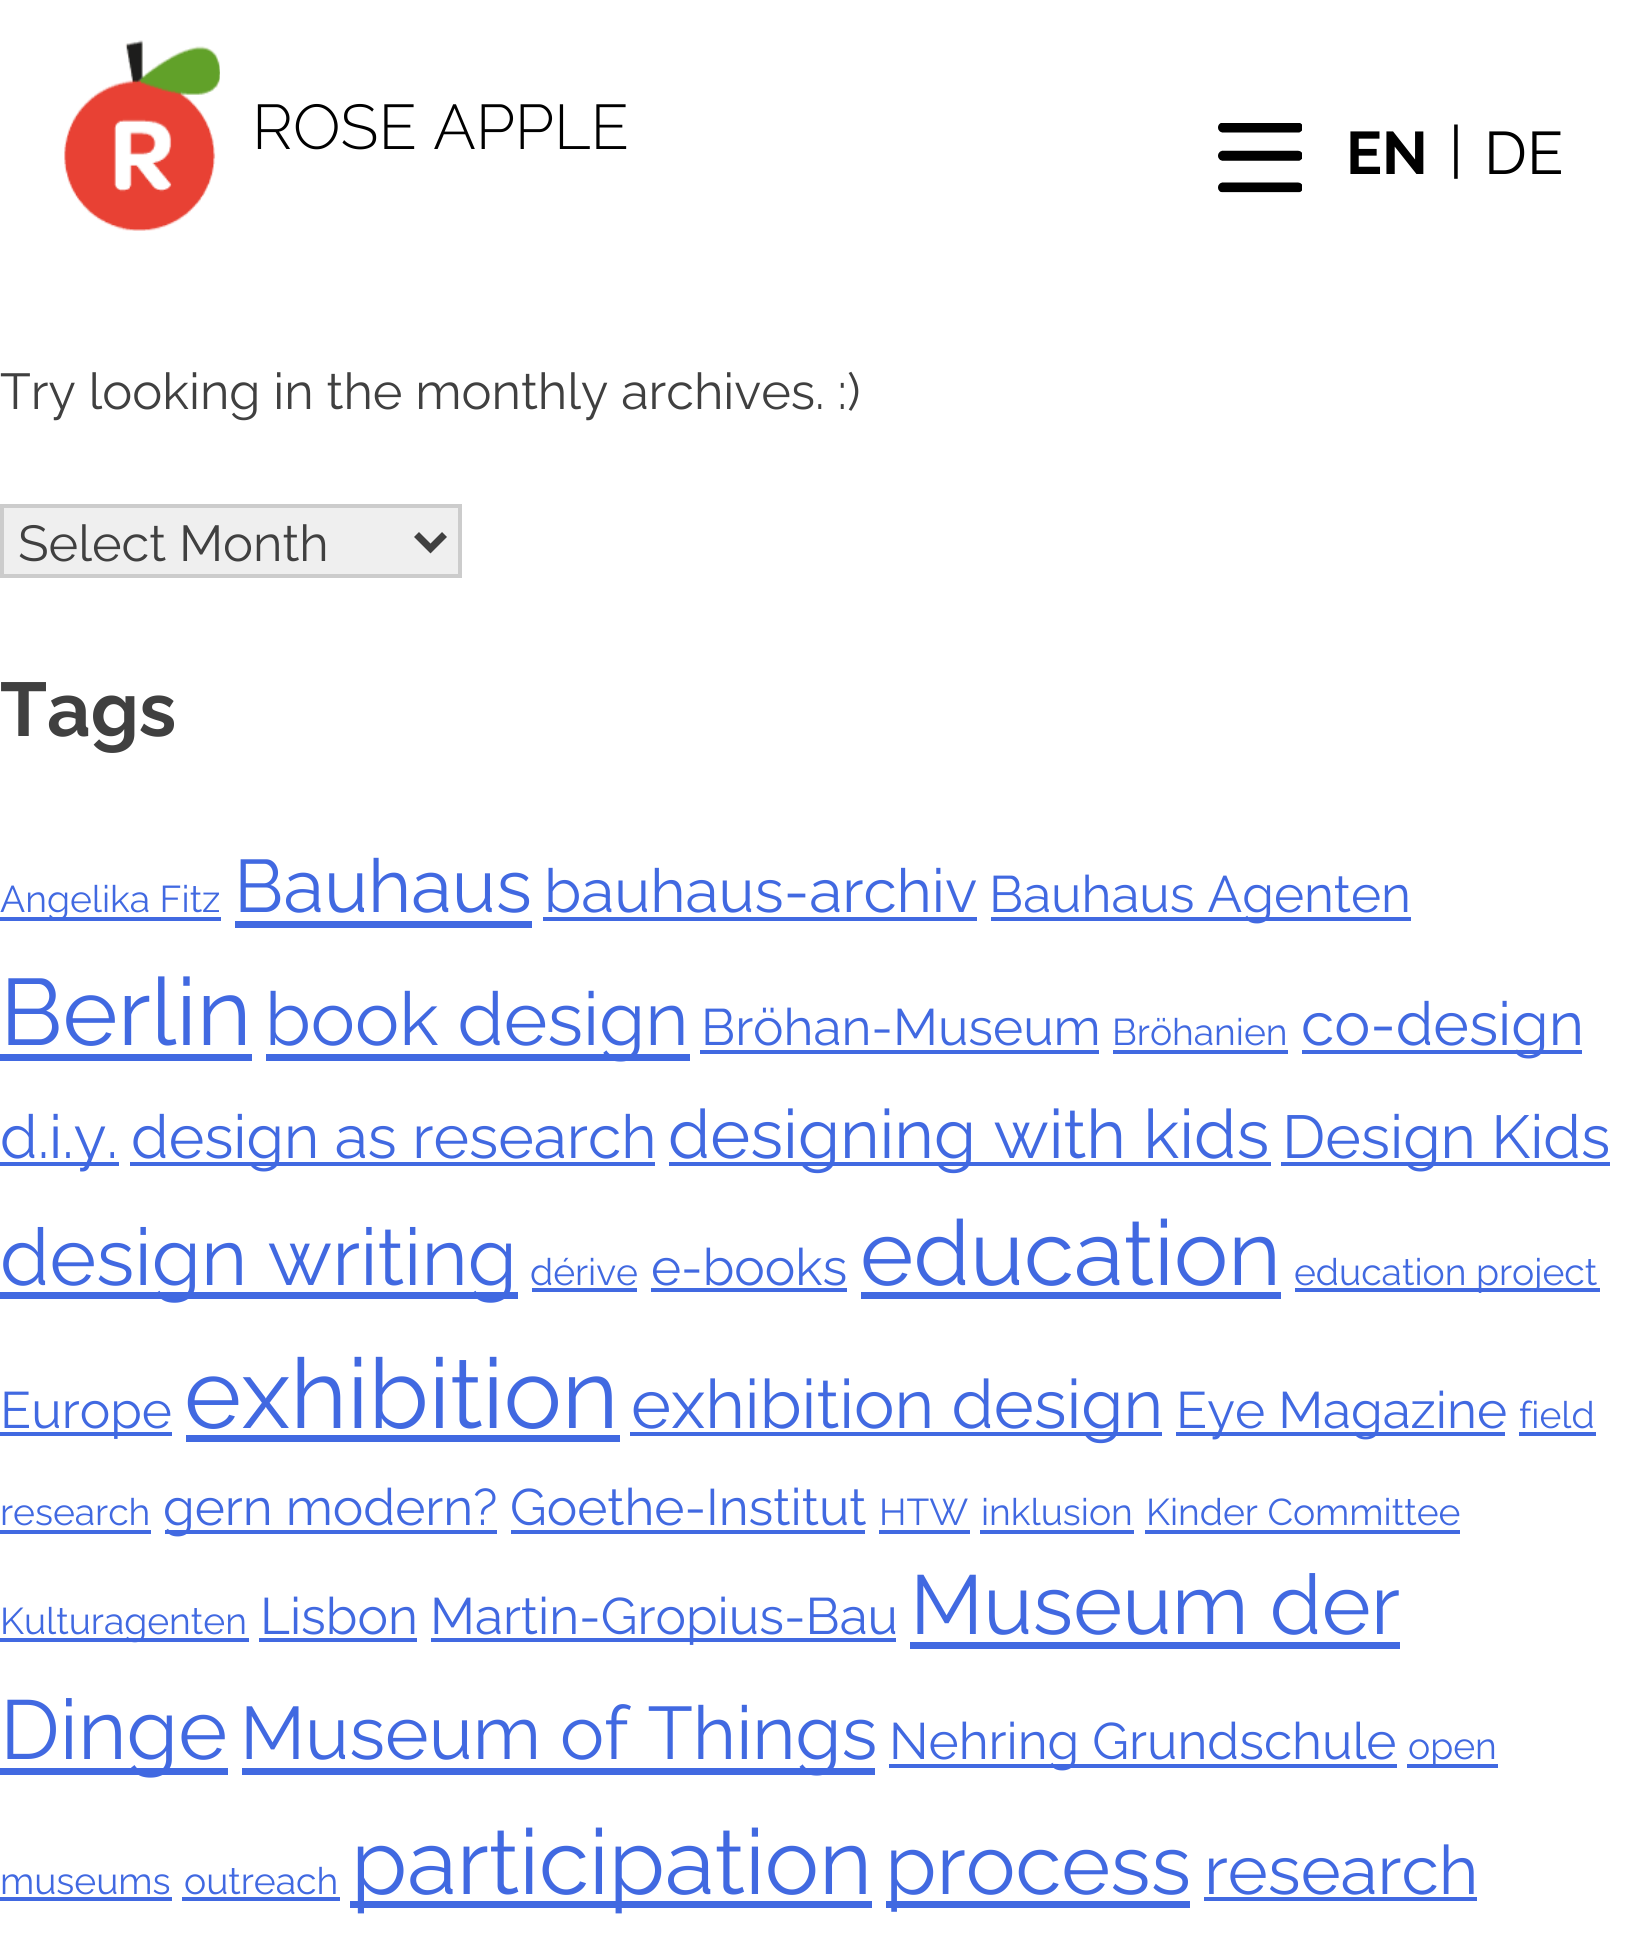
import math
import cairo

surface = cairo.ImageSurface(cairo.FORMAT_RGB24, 1630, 1941)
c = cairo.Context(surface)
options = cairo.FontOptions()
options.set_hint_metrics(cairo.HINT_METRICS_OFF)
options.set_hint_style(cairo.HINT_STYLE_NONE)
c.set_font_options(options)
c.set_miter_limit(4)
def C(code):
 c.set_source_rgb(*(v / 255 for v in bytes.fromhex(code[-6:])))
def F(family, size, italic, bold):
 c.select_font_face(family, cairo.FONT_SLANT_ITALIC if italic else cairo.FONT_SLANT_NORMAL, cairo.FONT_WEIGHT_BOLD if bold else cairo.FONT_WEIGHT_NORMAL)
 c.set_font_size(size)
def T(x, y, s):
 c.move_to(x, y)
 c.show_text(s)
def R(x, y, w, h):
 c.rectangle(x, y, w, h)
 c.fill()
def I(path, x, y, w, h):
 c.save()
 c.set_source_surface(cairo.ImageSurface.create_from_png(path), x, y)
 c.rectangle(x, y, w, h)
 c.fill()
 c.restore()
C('ffffff')
c.paint()
I('1.png',64,40,156,191)
F('Raleway Light',63,0,0)
C('000000')
T(252,149,'ROSE APPLE')
I('2.png',1218,123,84,70)
F('Raleway',60,0,1)
T(1346,174,'EN')
F('Raleway',60,0,0)
T(1449,171,'|')
T(1484,174,'DE')
F('Raleway',50.4,0,0)
C('404040')
T(0,409,'Try looking in the monthly archives. :)')
C('efefef')
c.rectangle(2,506,458,70)
c.fill_preserve()
C('cccccc')
c.set_line_width(4)
c.stroke()
c.new_path()
c.move_to(416.5,534.5)
c.line_to(430.5,548.5)
c.line_to(444.5,534.5)
C('404040')
c.set_line_width(7)
c.stroke()
T(18,561,'Select Month')
F('Raleway',76,0,1)
T(0,736,'Tags')
C('4169e1')
R(0,917,221,4)
F('Raleway',37.25,0,0)
T(0,912,'Angelika Fitz')
F('Raleway',74.25,0,0)
T(234,912,'Bauhaus')
R(235,921,297,7)
F('Raleway',60.5,0,0)
T(544,912,'bauhaus-archiv')
R(543,917,434,4)
R(991,917,420,4)
F('Raleway',51.25,0,0)
T(989,912,'Bauhaus Agenten')
F('Raleway',94,0,0)
T(0,1045,'Berlin')
R(0,1054,252,7)
R(266,1054,424,7)
F('Raleway',74.25,0,0)
T(265,1045,'book design')
F('Raleway',51.25,0,0)
T(701,1045,'Bröhan-Museum')
R(700,1050,399,4)
F('Raleway',37.25,0,0)
T(1112,1045,'Bröhanien')
R(1113,1050,175,4)
R(1302,1050,280,4)
F('Raleway',60.5,0,0)
T(1301,1045,'co-design')
R(0,1162,119,4)
T(0,1158,'d.i.y.')
R(130,1162,525,4)
T(131,1158,'design as research')
R(669,1162,602,4)
F('Raleway',68,0,0)
T(668,1158,'designing with kids')
R(1281,1162,329,4)
F('Raleway',60.5,0,0)
T(1282,1158,'Design Kids')
R(0,1292,518,7)
F('Raleway',79.5,0,0)
T(0,1285,'design writing')
F('Raleway',37.25,0,0)
T(530,1285,'dérive')
R(532,1288,105,4)
F('Raleway',51.25,0,0)
T(651,1285,'e-books')
R(651,1288,196,4)
F('Raleway',91,0,0)
T(860,1285,'education')
R(861,1292,420,7)
R(1295,1288,305,4)
F('Raleway',37.25,0,0)
T(1294,1285,'education project')
R(0,1432,172,4)
F('Raleway',51.25,0,0)
T(0,1428,'Europe')
F('Raleway',97.5,0,0)
T(184,1428,'exhibition')
R(186,1435,434,7)
R(630,1432,532,4)
F('Raleway',68,0,0)
T(631,1428,'exhibition design')
R(1176,1432,329,4)
F('Raleway',51.25,0,0)
T(1176,1428,'Eye Magazine')
F('Raleway',37.25,0,0)
T(1519,1428,'field')
R(1519,1432,77,4)
T(0,1525,'research')
R(0,1530,151,4)
R(165,1530,332,4)
F('Raleway',51.25,0,0)
T(163,1525,'gern modern?')
T(510,1525,'Goethe-Institut')
R(511,1530,354,4)
F('Raleway',37.25,0,0)
T(879,1525,'HTW')
R(879,1530,91,4)
T(981,1525,'inklusion')
R(980,1530,154,4)
T(1146,1525,'Kinder Committee')
R(1145,1530,315,4)
R(0,1638,249,4)
T(0,1634,'Kulturagenten')
F('Raleway',51.25,0,0)
T(260,1634,'Lisbon')
R(259,1638,158,4)
R(431,1638,465,4)
T(430,1634,'Martin-Gropius-Bau')
F('Raleway',83.5,0,0)
T(910,1634,'Museum der')
R(910,1642,490,7)
R(0,1768,228,7)
T(0,1759,'Dinge')
R(242,1768,633,7)
F('Raleway',74.25,0,0)
T(240,1759,'Museum of Things')
R(889,1764,508,4)
F('Raleway',51.25,0,0)
T(889,1759,'Nehring Grundschule')
R(1407,1764,91,4)
F('Raleway',37.25,0,0)
T(1408,1759,'open')
T(0,1894,'museums')
R(0,1897,172,4)
T(184,1894,'outreach')
R(182,1897,158,4)
R(350,1901,522,7)
F('Raleway',91,0,0)
T(351,1894,'participation')
R(886,1901,304,7)
F('Raleway',83.5,0,0)
T(885,1894,'process')
F('Raleway',68,0,0)
T(1204,1894,'research')
R(1204,1897,273,4)
surface.write_to_png('o.png')
